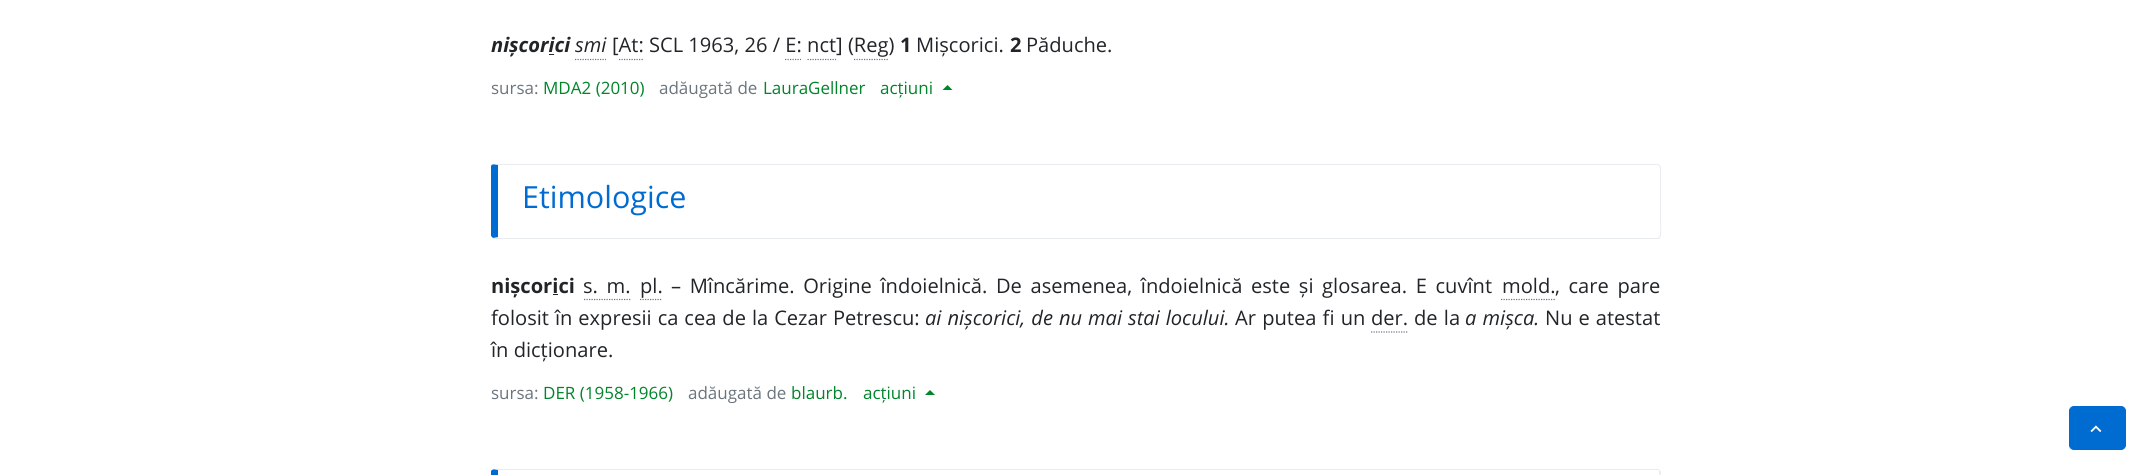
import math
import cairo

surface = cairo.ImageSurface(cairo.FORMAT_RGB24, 2151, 475)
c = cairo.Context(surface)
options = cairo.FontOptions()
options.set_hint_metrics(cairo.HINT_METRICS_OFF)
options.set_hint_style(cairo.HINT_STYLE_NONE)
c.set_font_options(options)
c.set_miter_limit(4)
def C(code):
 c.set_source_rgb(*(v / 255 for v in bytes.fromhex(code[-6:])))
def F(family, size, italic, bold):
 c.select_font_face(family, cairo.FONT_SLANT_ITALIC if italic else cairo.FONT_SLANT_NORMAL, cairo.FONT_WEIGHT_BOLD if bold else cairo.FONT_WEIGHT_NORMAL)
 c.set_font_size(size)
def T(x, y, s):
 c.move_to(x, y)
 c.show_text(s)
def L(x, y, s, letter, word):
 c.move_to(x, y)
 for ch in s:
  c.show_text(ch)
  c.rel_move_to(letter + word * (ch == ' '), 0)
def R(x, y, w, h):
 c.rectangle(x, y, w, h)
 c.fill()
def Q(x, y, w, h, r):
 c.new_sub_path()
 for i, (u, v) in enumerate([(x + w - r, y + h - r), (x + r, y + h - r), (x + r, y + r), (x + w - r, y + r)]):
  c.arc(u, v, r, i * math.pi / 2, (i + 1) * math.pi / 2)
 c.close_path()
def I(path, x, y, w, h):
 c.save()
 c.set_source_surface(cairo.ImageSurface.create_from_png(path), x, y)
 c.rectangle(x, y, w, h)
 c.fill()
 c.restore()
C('ffffff')
c.paint()
F('Open Sans',20.1,1,1)
C('212529')
T(491,52,'nișcorici')
R(549,54,5,1)
F('Open Sans',20.1,1,0)
T(575,52,'smi')
c.new_path()
c.move_to(575,59.5)
c.line_to(606,59.5)
C('6c757d')
c.set_line_width(1.2)
c.set_dash([1.25,1.25])
c.stroke()
F('Open Sans',20.1,0,0)
C('212529')
T(612,52,'[At: SCL 1963, 26 / E: nct] (Reg)')
F('Open Sans',20.1,0,1)
T(900,52,'1')
F('Open Sans',20.1,0,0)
T(916,52,'Mișcorici.')
F('Open Sans',20.1,0,1)
T(1010,52,'2')
F('Open Sans',20.1,0,0)
T(1026,52,'Păduche.')
c.new_path()
c.move_to(619,59.5)
c.line_to(644,59.5)
C('6c757d')
c.stroke()
c.new_path()
c.move_to(785,59.5)
c.line_to(801,59.5)
c.move_to(807.5,59.5)
c.line_to(836,59.5)
c.stroke()
c.new_path()
c.move_to(854,59.5)
c.line_to(889,59.5)
c.stroke()
F('Open Sans',17,0,0)
T(491,94,'sursa:')
C('00852a')
T(543,94,'MDA2 (2010)')
C('6c757d')
T(659,94,'adăugată de')
C('00852a')
T(763,94,'LauraGellner')
T(880,94,'acțiuni')
c.new_path()
c.move_to(952.5,90)
c.line_to(942.5,90)
c.line_to(947.5,85)
c.close_path()
c.fill()
C('e9ecef')
c.new_path()
c.move_to(495,164)
c.line_to(494,164)
c.line_to(498,165)
c.line_to(1658,165)
c.line_to(1659,166)
c.line_to(1660,165)
c.line_to(1658,164)
c.close_path()
c.fill()
c.new_path()
c.move_to(1660,165)
c.line_to(1661,167)
c.line_to(1661,224)
c.curve_to(1661,224,1662,235,1660,238)
c.line_to(1659,237)
c.curve_to(1661,234,1660,224,1660,224)
c.line_to(1660,168)
c.line_to(1659,166)
c.close_path()
c.fill()
c.new_path()
c.move_to(494,239)
c.line_to(493,238)
c.line_to(498,237)
c.line_to(498,238)
c.line_to(1658,238)
c.line_to(1659,237)
c.line_to(1660,238)
c.line_to(1659,239)
c.close_path()
c.fill()
C('006cd1')
c.new_path()
c.move_to(491,166)
c.curve_to(492,163,496,165,498,165)
c.line_to(498,237)
c.line_to(493,238)
c.line_to(491,236)
c.close_path()
c.fill()
F('Open Sans',30.5,0,0)
T(522,208,'Etimologice')
F('Open Sans',20.1,0,1)
C('212529')
T(491,293,'nișcorici')
R(553,294,5,1)
F('Open Sans',20.1,0,0)
L(583,293,'s. m.',0,3.4)
c.new_path()
c.move_to(584,299.5)
c.line_to(631,299.5)
C('6c757d')
c.stroke()
C('212529')
T(640,293,'pl.')
c.new_path()
c.move_to(640,299.5)
c.line_to(662.5,299.5)
C('6c757d')
c.stroke()
C('212529')
L(671,293,'– Mîncărime. Origine îndoielnică. De asemenea, îndoielnică este și glosarea. E cuvînt',0,3.4)
T(1502,293,'mold.')
c.new_path()
c.move_to(1501,299.5)
c.line_to(1555,299.5)
C('6c757d')
c.stroke()
C('212529')
L(1555,293,', care pare',0,3.4)
L(491,325,'folosit în expresii ca cea de la Cezar Petrescu:',0,.75)
F('Open Sans',20.1,1,0)
L(925,325,'ai nișcorici, de nu mai stai locului.',0,.75)
F('Open Sans',20.1,0,0)
L(1235,325,'Ar putea fi un',0,1)
T(1371,325,'der.')
c.new_path()
c.move_to(1371,332)
c.line_to(1407.5,332)
C('6c757d')
c.stroke()
C('212529')
L(1414,325,'de la',0,1)
F('Open Sans',20.1,1,0)
L(1465,325,'a mișca.',0,1)
F('Open Sans',20.1,0,0)
L(1545,325,'Nu e atestat',0,.75)
T(491,357,'în dicționare.')
F('Open Sans',17,0,0)
C('6c757d')
T(491,399,'sursa:')
C('00852a')
T(543,399,'DER (1958-1966)')
C('6c757d')
T(688,399,'adăugată de')
C('00852a')
T(791,399,'blaurb.')
T(863,399,'acțiuni')
c.new_path()
c.move_to(935,395)
c.line_to(925,395)
c.line_to(930,390)
c.close_path()
c.fill()
C('e9ecef')
c.new_path()
c.move_to(495,469)
c.line_to(493,469)
c.line_to(498,470)
c.line_to(1658,470)
c.line_to(1659,471)
c.line_to(1660,470)
c.line_to(1658,469)
c.close_path()
c.fill()
c.new_path()
c.move_to(1660,470)
c.line_to(1661,472)
c.line_to(1661,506)
c.line_to(1661,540)
c.line_to(1660,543)
c.line_to(1659,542)
c.line_to(1660,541)
c.line_to(1660,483)
c.line_to(1659,471)
c.close_path()
c.fill()
C('006cd1')
c.new_path()
c.move_to(491,471)
c.curve_to(493,468,496,470,498,470)
c.line_to(498,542)
c.line_to(500,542)
c.line_to(493,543)
c.line_to(491,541)
c.close_path()
c.fill()
Q(2069.5,406.5,56,43,4.5)
c.fill_preserve()
c.set_line_width(1)
c.set_dash([])
c.stroke()
I('1.png',2090,425,12,8)
surface.write_to_png('o.png')
